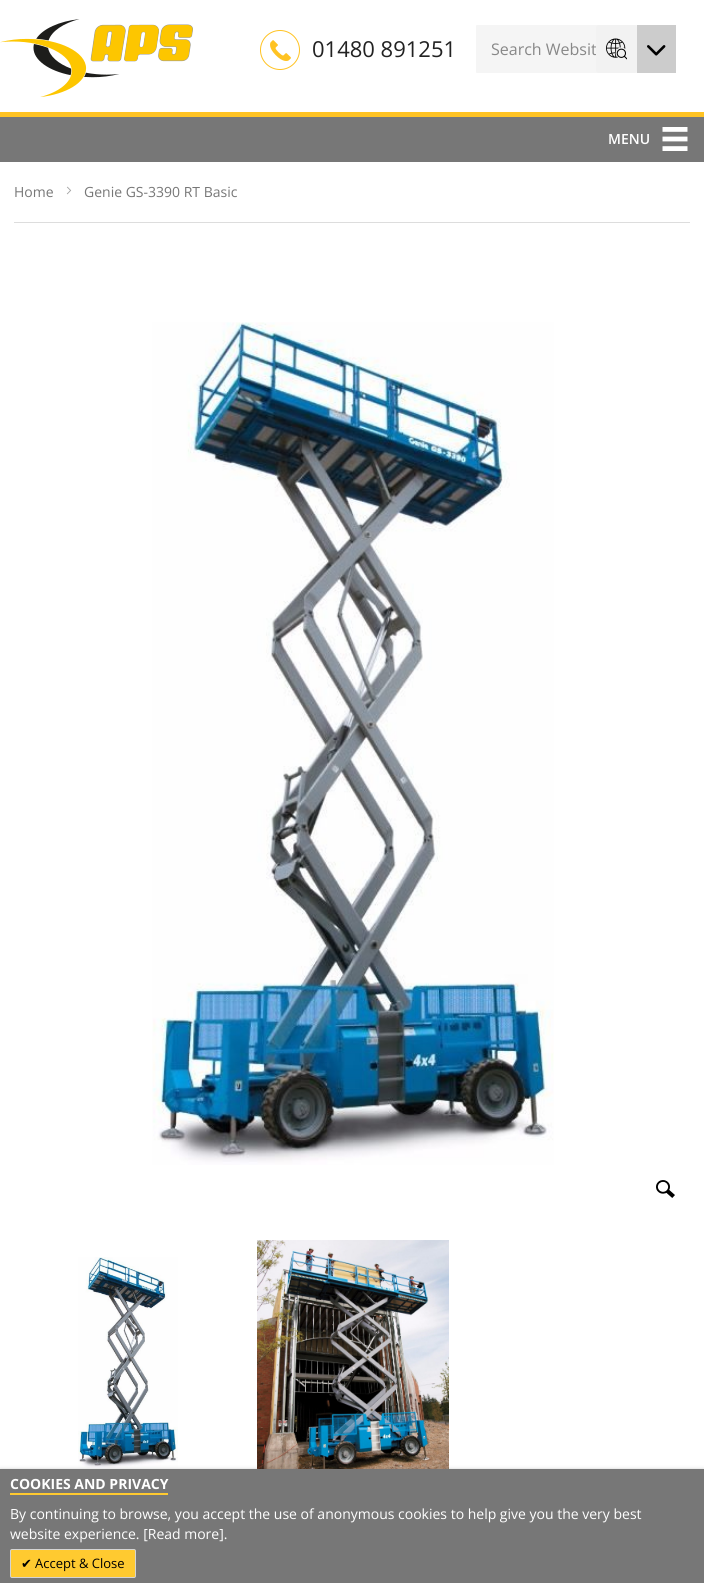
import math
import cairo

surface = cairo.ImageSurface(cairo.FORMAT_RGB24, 704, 1583)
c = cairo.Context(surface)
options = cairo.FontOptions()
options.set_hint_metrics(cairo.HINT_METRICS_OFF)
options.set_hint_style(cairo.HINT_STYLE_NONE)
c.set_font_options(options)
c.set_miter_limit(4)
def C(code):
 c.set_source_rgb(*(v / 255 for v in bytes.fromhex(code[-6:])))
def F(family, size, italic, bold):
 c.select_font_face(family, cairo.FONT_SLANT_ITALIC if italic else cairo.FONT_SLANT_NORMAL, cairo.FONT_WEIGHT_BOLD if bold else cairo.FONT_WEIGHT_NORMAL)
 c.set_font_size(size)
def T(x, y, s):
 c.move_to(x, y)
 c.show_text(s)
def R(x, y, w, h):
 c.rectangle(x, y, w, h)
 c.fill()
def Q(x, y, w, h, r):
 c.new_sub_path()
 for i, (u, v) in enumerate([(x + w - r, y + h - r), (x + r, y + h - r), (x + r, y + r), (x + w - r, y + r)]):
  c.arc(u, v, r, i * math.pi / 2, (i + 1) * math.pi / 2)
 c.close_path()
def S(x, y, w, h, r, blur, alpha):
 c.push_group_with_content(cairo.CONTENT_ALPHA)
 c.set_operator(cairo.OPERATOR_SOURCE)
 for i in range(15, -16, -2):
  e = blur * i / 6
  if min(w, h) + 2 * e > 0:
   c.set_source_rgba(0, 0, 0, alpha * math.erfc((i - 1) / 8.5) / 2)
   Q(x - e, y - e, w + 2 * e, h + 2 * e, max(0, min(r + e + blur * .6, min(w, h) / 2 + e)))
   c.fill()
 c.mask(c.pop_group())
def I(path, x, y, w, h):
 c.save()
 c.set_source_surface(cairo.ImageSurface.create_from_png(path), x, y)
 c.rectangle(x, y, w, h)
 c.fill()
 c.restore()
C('ffffff')
c.paint()
I('1.png',0,19,193,78)
c.arc(280,50,19.5,0,2 * math.pi)
C('ffc323')
c.set_line_width(1)
c.stroke()
I('2.png',270,40,21,21)
F('Open Sans',22,0,0)
C('222222')
T(312,57,'01480 891251')
C('f5f5f5')
Q(476,25,200,48,1)
c.fill()
F('Open Sans',16,0,0)
C('888888')
T(491,55,'Search Websit')
C('f2f2f2')
Q(596,25,41,48,3)
c.fill()
I('3.png',606,38,21,22)
C('cccccc')
R(637,25,39,48)
I('4.png',647,45,19,11)
C('777777')
R(0,117,704,45)
C('ffc323')
R(0,112,704,5)
F('Open Sans SemiBold',14,0,0)
C('ffffff')
T(608,144,'MENU')
I('5.png',662,127,26,24)
C('dddddd')
R(14,222,676,1)
F('Open Sans',14,0,0)
C('777777')
T(14,197,'Home')
I('6.png',66,186,6,9)
T(84,197,'Genie GS-3390 RT Basic')
I('7.png',152,322,402,843)
I('8.png',656,1180,19,18)
I('9.png',78,1257,100,211)
I('10.png',257,1240,192,229)
C('000000')
S(0,1471,704,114,0,2.5,.47)
C('777777')
R(0,1469,704,114)
F('Open Sans',14,0,1)
C('ffffff')
T(10,1489,'COOKIES AND PRIVACY')
C('ffca30')
R(10,1493,158,2)
F('Open Sans',14,0,0)
C('ffffff')
T(10,1519,'By continuing to browse, you accept the use of anonymous cookies to help give you the very best')
T(10,1539,'website experience. [Read more].')
C('ffca30')
Q(10.5,1549.5,125,28,1.5)
c.fill_preserve()
C('d4d4d4')
c.stroke()
F('DejaVu Sans',13,0,0)
C('000000')
T(21,1568,'✔')
F('Open Sans',13,0,0)
T(35,1568,'Accept & Close')
surface.write_to_png('o.png')
